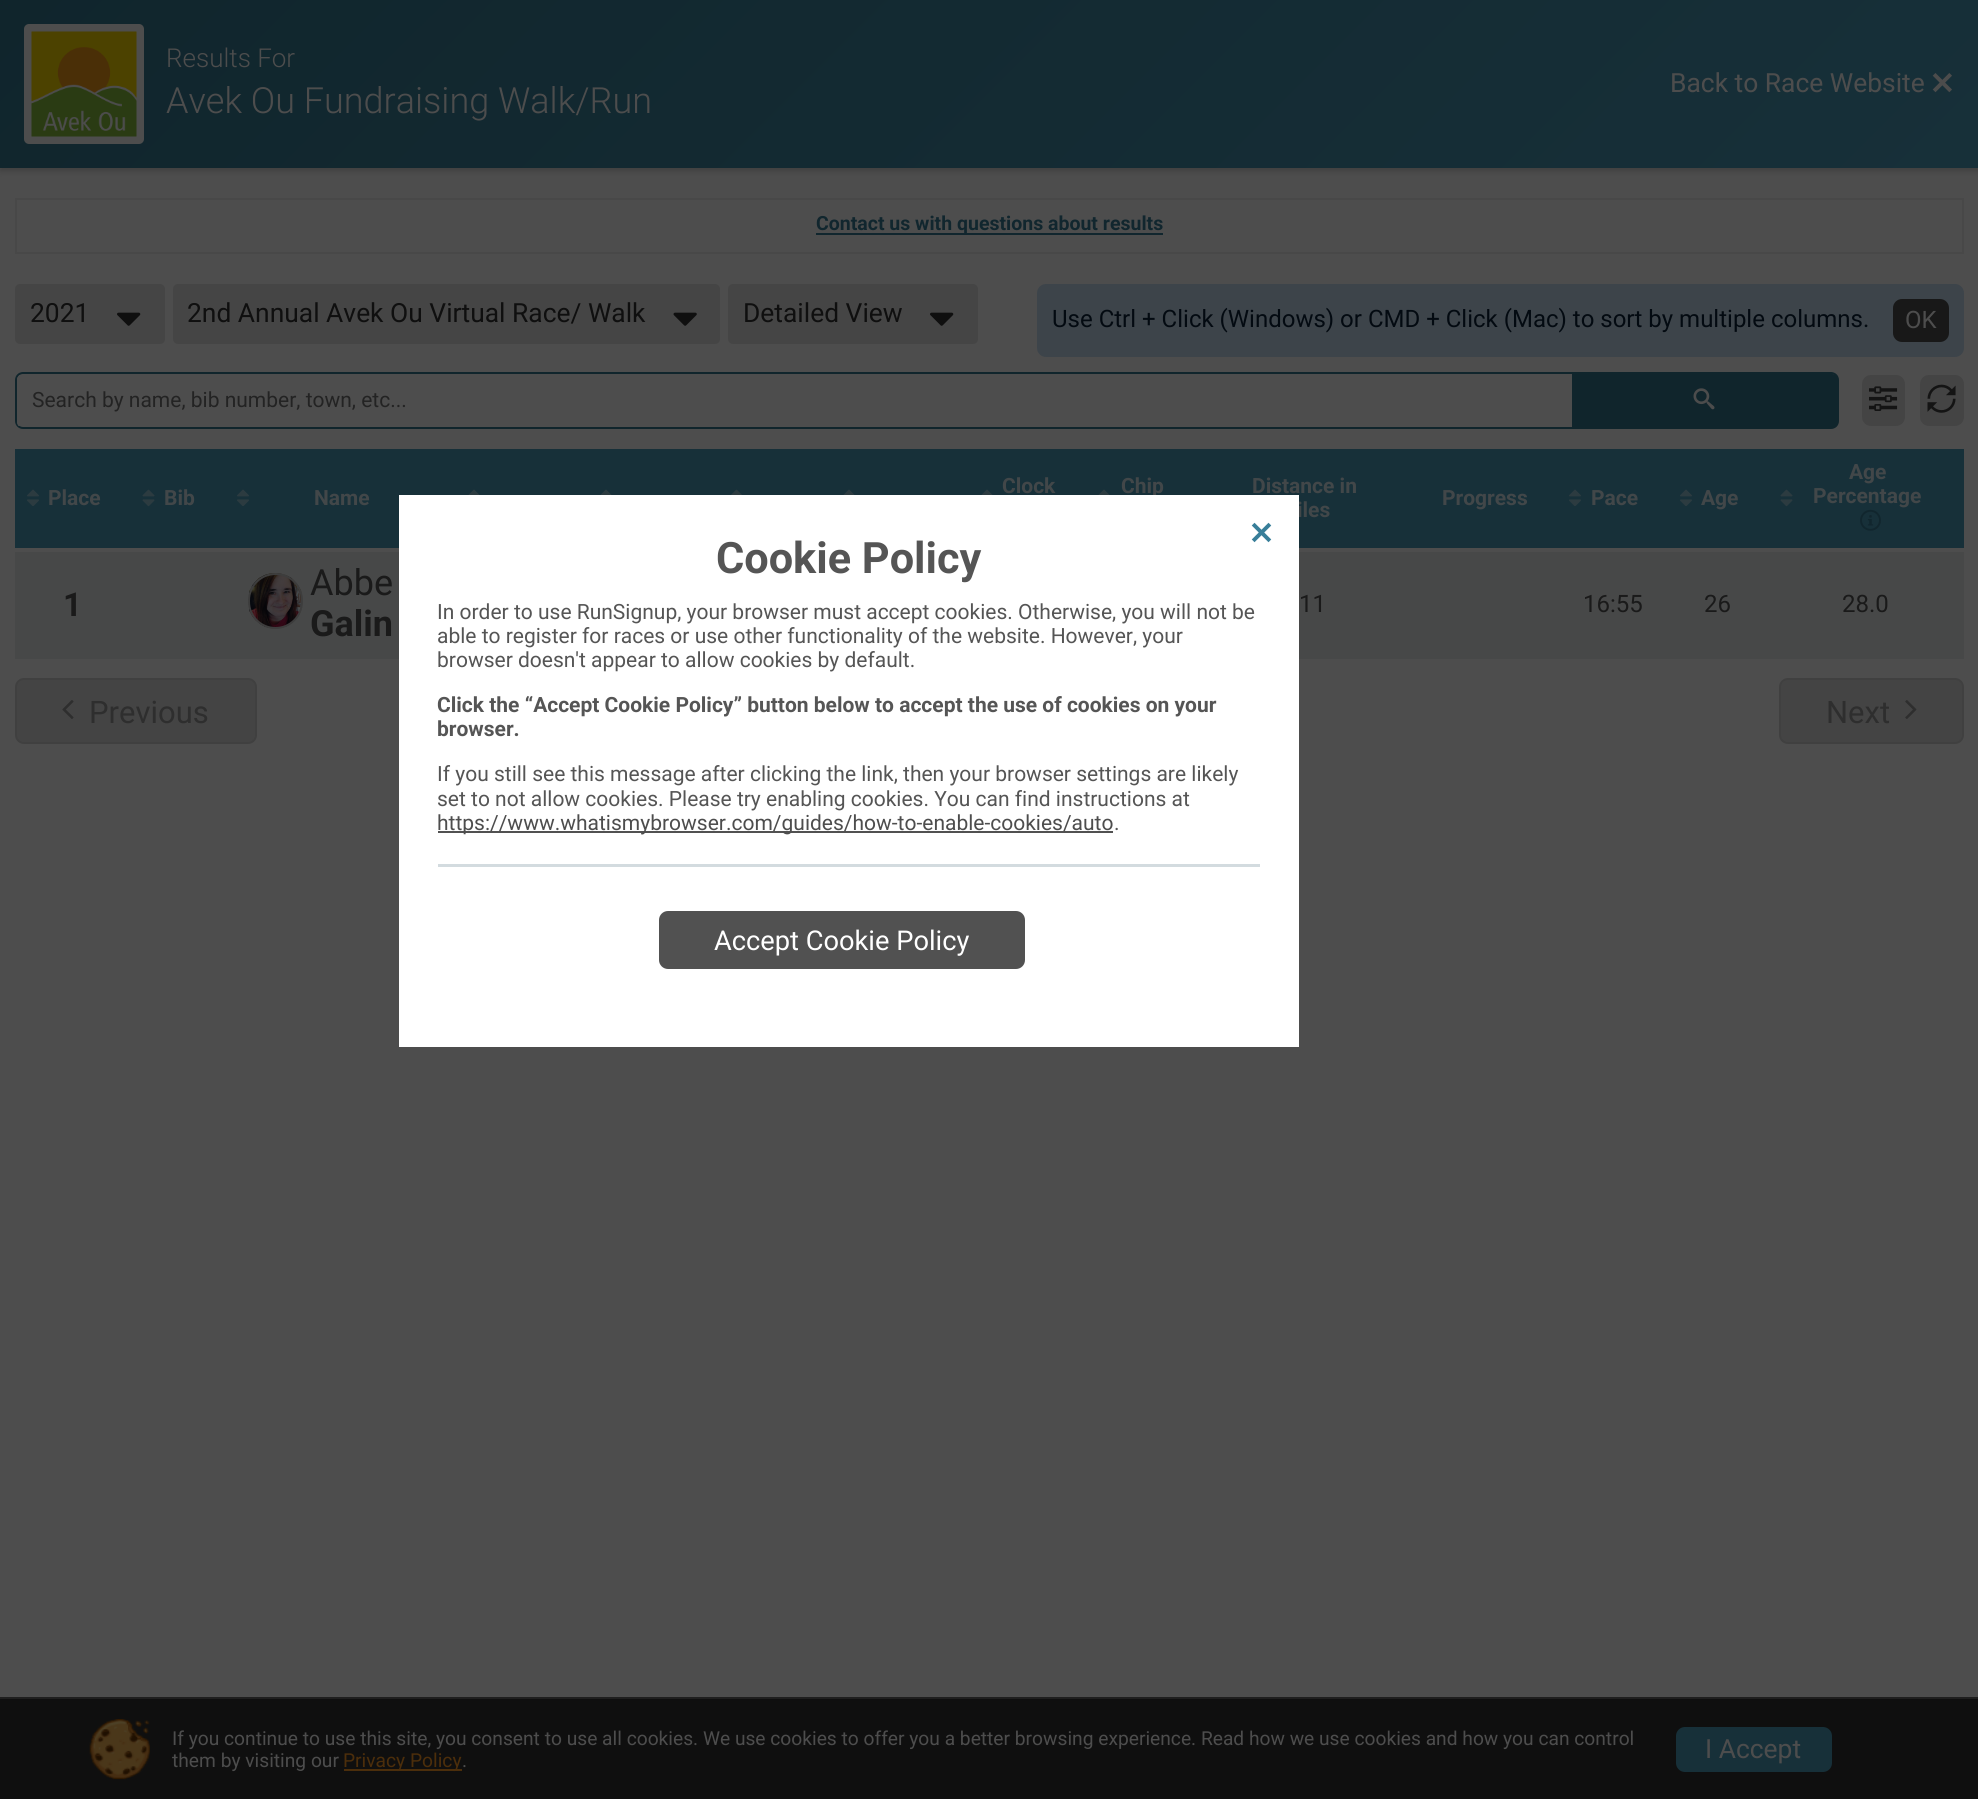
import math
import cairo

surface = cairo.ImageSurface(cairo.FORMAT_RGB24, 1978, 1799)
c = cairo.Context(surface)
options = cairo.FontOptions()
options.set_hint_metrics(cairo.HINT_METRICS_OFF)
options.set_hint_style(cairo.HINT_STYLE_NONE)
c.set_font_options(options)
c.set_miter_limit(4)
def C(code):
 c.set_source_rgb(*(v / 255 for v in bytes.fromhex(code[-6:])))
def F(family, size, italic, bold):
 c.select_font_face(family, cairo.FONT_SLANT_ITALIC if italic else cairo.FONT_SLANT_NORMAL, cairo.FONT_WEIGHT_BOLD if bold else cairo.FONT_WEIGHT_NORMAL)
 c.set_font_size(size)
def T(x, y, s):
 c.move_to(x, y)
 c.show_text(s)
def R(x, y, w, h):
 c.rectangle(x, y, w, h)
 c.fill()
def Q(x, y, w, h, r):
 c.new_sub_path()
 for i, (u, v) in enumerate([(x + w - r, y + h - r), (x + r, y + h - r), (x + r, y + r), (x + w - r, y + r)]):
  c.arc(u, v, r, i * math.pi / 2, (i + 1) * math.pi / 2)
 c.close_path()
def S(x, y, w, h, r, blur, alpha):
 c.push_group_with_content(cairo.CONTENT_ALPHA)
 c.set_operator(cairo.OPERATOR_SOURCE)
 for i in range(15, -16, -2):
  e = blur * i / 6
  if min(w, h) + 2 * e > 0:
   c.set_source_rgba(0, 0, 0, alpha * math.erfc((i - 1) / 8.5) / 2)
   Q(x - e, y - e, w + 2 * e, h + 2 * e, max(0, min(r + e + blur * .6, min(w, h) / 2 + e)))
   c.fill()
 c.mask(c.pop_group())
def I(path, x, y, w, h):
 c.save()
 c.set_source_surface(cairo.ImageSurface.create_from_png(path), x, y)
 c.rectangle(x, y, w, h)
 c.fill()
 c.restore()
C('4d4d4d')
c.paint()
C('000000')
S(0,3,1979,168,0,3,.18)
gradient = cairo.LinearGradient(1526,621,453,-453)
gradient.add_color_stop_rgba(0,0.09,0.188,0.224,1)
gradient.add_color_stop_rgba(1,0.063,0.145,0.173,1)
c.set_source(gradient)
R(0,0,1978,168)
C('4d4d4d')
Q(24,24,120,120,5)
c.fill()
I('1.png',31,31,106,106)
F('Roboto Light',26,0,0)
T(166,67,'Results For')
F('Roboto Light',36,0,0)
T(166,113,'Avek Ou Fundraising Walk/Run')
F('Roboto',26.4,0,0)
T(1670,92,'Back to Race Website')
I('2.png',1932,73,20,20)
c.rectangle(16,199,1947,54)
C('484848')
c.stroke()
C('11262e')
R(816,233,347,2)
F('Roboto',19.5,0,1)
T(816,230,'Contact us with questions about results')
C('454545')
Q(15,284,150,60,5)
c.fill()
F('Roboto',26.4,0,0)
C('0f0f0f')
T(30,322,'2021')
I('3.png',117,312,24,14)
C('454545')
Q(173,284,547,60,5)
c.fill()
C('0f0f0f')
T(187,322,'2nd Annual Avek Ou Virtual Race/ Walk')
I('4.png',673,312,24,14)
C('454545')
Q(728,284,250,60,5)
c.fill()
C('0f0f0f')
T(743,322,'Detailed View')
I('3.png',930,312,24,14)
C('3d444a')
Q(1037,284,927,73,9)
c.fill()
F('Roboto',24,0,0)
C('030a11')
T(1052,327,'Use Ctrl + Click (Windows) or CMD + Click (Mac) to sort by multiple columns.')
C('181818')
Q(1893,299,56,43,9)
c.fill()
C('4d4d4d')
T(1905,328,'OK')
Q(16,373,1822,55,7)
C('10252c')
c.stroke()
c.save()
Q(17,374,1821,54,6)
c.clip()
C('4d4d4d')
R(17,375,1555,51)
c.restore()
F('Roboto',21,0,0)
C('232323')
T(32,407,'Search by name, bib number, town, etc...')
C('10252c')
c.new_path()
c.move_to(1572,374)
c.line_to(1832,374)
c.curve_to(1835.5,374,1838,376.5,1838,380)
c.line_to(1838,422)
c.curve_to(1838,425.5,1835.5,428,1832,428)
c.line_to(1572,428)
c.close_path()
c.fill()
I('5.png',1693,388,22,22)
C('444444')
Q(1862,375,43,51,9)
c.fill()
I('6.png',1869,386,29,25)
Q(1920,375,44,51,9)
c.fill()
I('7.png',1927,384,29,29)
C('173039')
R(15,449,1949,99)
I('8.png',27,489,12,17)
F('Roboto',21,0,1)
C('424749')
T(48,505,'Place')
I('9.png',142,489,13,18)
T(164,505,'Bib')
I('8.png',237,489,12,17)
T(314,505,'Name')
I('10.png',468,489,12,6)
I('10.png',600,489,12,6)
I('11.png',731,489,11,6)
I('10.png',843,489,12,6)
I('10.png',981,489,12,6)
T(1002,493,'Clock')
I('10.png',1098,489,12,6)
T(1121,493,'Chip')
T(1252,493,'Distance in')
T(1297,517,'iles')
T(1442,505,'Progress')
I('8.png',1569,489,12,17)
T(1591,505,'Pace')
I('8.png',1680,489,12,17)
T(1701,505,'Age')
T(1849,479,'Age')
I('9.png',1780,489,13,18)
T(1813,503,'Percentage')
I('12.png',1860,509,21,22)
C('474848')
R(15,552,1949,107)
F('Roboto',33,0,1)
C('1a1a1a')
T(63,616,'1')
I('13.png',249,573,53,56)
Q(249,574,53,54,26.5)
C('3d3d3d')
c.stroke()
F('Roboto',36,0,0)
C('1a1a1a')
T(310,595,'Abbe')
F('Roboto',36,0,1)
T(310,636,'Galin')
F('Roboto',24,0,0)
T(1299,612,'11')
T(1583,612,'16:55')
T(1704,612,'26')
T(1842,612,'28.0')
C('444444')
Q(16,679,240,64,8)
c.fill_preserve()
C('404040')
c.stroke()
I('14.png',62,700,12,19)
F('Roboto',31,0,0)
C('2e2e2e')
T(89,723,'Previous')
C('444444')
Q(1780,679,183,64,8)
c.fill_preserve()
C('404040')
c.stroke()
C('2e2e2e')
T(1826,723,'Next')
I('15.png',1905,700,12,19)
c.rectangle(400,496,898,550)
C('ffffff')
c.stroke()
R(401,497,896,548)
I('16.png',1251,522,21,21)
F('Roboto',43.25,0,1)
C('555555')
T(716,573,'Cookie Policy')
F('Roboto',21,0,0)
T(437,619,'In order to use RunSignup, your browser must accept cookies. Otherwise, you will not be')
T(437,643,'able to register for races or use other functionality of the website. However, your')
T(437,667,'browser doesn\'t appear to allow cookies by default.')
F('Roboto',21,0,1)
T(437,712,'Click the “Accept Cookie Policy” button below to accept the use of cookies on your')
T(437,736,'browser.')
F('Roboto',21,0,0)
T(437,781,'If you still see this message after clicking the link, then your browser settings are likely')
T(437,806,'set to not allow cookies. Please try enabling cookies. You can find instructions at')
C('515151')
R(438,831,675,2)
C('4d4d4d')
T(437,830,'https://www.whatismybrowser.com/guides/how-to-enable-cookies/auto')
C('555555')
T(1114,830,'.')
C('d3dbdf')
R(438,864,822,3)
C('515151')
Q(659,911,366,58,9)
c.fill()
F('Roboto',27.25,0,0)
C('ffffff')
T(714,950,'Accept Cookie Policy')
C('0f0f0f')
R(0,1699,1978,100)
C('1f1f1f')
R(0,1697,1978,2)
I('17.png',89,1719,61,61)
F('Roboto',19.2,0,0)
C('4d4d4d')
T(172,1745,'If you continue to use this site, you consent to use all cookies. We use cookies to offer you a better browsing experience. Read how we use cookies and how you can control')
T(172,1767,'them by visiting our')
C('4c2e0b')
R(344,1769,118,2)
T(343,1767,'Privacy Policy')
C('4d4d4d')
T(462,1767,'.')
C('173039')
Q(1676,1727,156,45,9)
c.fill()
F('Roboto',26.4,0,0)
C('4d4d4d')
T(1705,1758,'I Accept')
surface.write_to_png('o.png')
